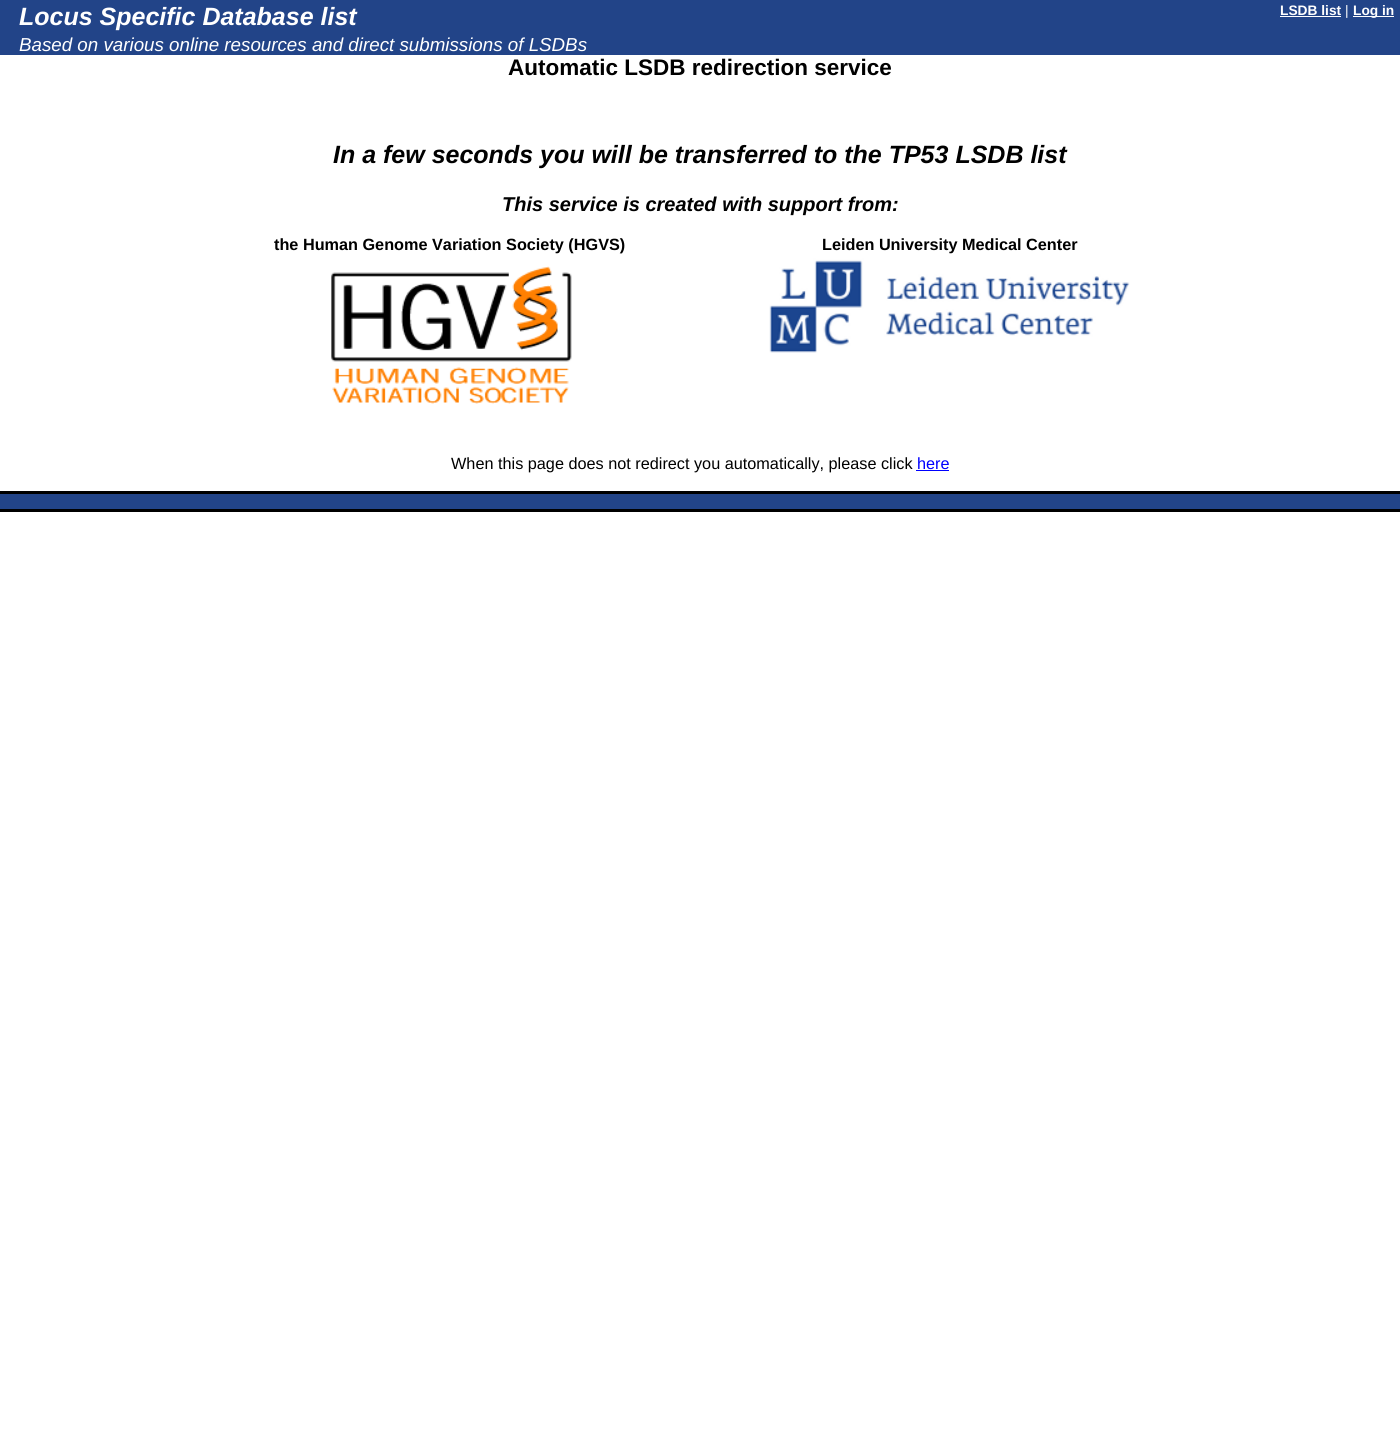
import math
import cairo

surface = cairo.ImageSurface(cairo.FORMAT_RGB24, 1400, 1451)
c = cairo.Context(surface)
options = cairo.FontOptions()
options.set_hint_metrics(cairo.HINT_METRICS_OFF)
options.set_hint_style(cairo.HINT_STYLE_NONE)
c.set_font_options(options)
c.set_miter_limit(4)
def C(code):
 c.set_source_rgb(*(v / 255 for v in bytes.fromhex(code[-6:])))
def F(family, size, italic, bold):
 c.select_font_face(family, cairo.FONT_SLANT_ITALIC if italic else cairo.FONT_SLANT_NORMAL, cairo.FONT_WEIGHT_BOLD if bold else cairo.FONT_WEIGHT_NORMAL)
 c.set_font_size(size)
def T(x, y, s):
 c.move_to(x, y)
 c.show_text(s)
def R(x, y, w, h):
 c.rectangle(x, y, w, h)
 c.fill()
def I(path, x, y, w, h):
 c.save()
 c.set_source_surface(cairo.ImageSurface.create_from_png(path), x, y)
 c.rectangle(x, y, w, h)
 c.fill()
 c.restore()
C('ffffff')
c.paint()
C('224488')
R(0,0,1400,55)
F('Liberation Sans',25,1,1)
C('ffffff')
T(19,25,'Locus Specific Database list')
F('Liberation Sans',18.75,1,0)
T(19,51,'Based on various online resources and direct submissions of LSDBs')
F('Liberation Sans',13.75,0,1)
T(1280,15,'LSDB list')
R(1280,16,61,1)
F('Liberation Sans',13.75,0,0)
T(1345,15,'|')
R(1353,16,41,1)
F('Liberation Sans',13.75,0,1)
T(1353,15,'Log in')
F('Liberation Sans',22.5,0,1)
C('000000')
T(508,75,'Automatic LSDB redirection service')
F('Liberation Sans',25,1,1)
T(333,163,'In a few seconds you will be transferred to the TP53 LSDB list')
F('Liberation Sans',20,1,1)
T(502,211,'This service is created with support from:')
F('Liberation Sans',16.25,0,1)
T(274,250,'the Human Genome Variation Society (HGVS)')
I('1.png',331,253,243,151)
T(822,250,'Leiden University Medical Center')
I('2.png',769,253,361,100)
F('Liberation Sans',16.25,0,0)
T(451,469,'When this page does not redirect you automatically, please click')
C('0000ff')
T(917,469,'here')
R(916,470,33,1)
C('224488')
R(0,494,1400,15)
C('000000')
R(0,491,1400,3)
R(0,509,1400,3)
surface.write_to_png('o.png')
